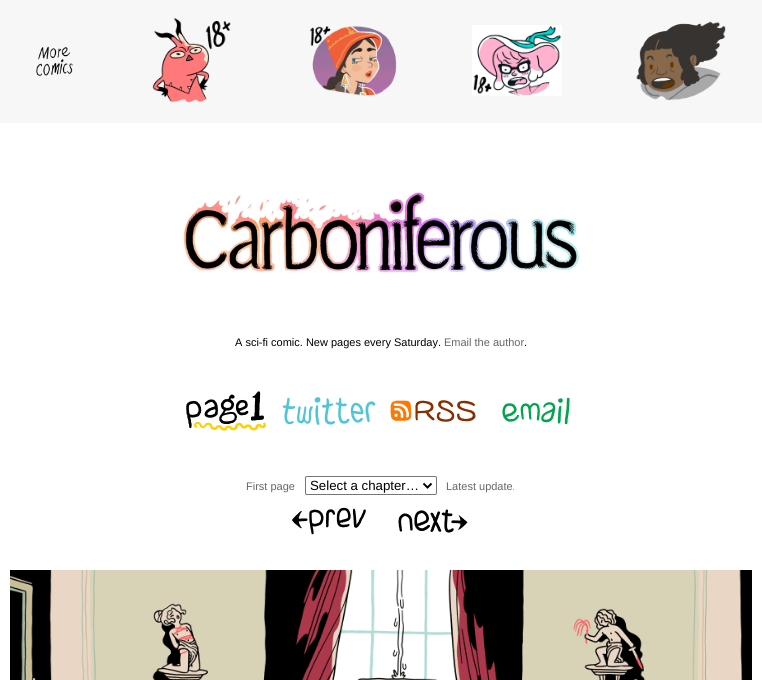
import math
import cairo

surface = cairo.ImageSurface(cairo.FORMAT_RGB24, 762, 680)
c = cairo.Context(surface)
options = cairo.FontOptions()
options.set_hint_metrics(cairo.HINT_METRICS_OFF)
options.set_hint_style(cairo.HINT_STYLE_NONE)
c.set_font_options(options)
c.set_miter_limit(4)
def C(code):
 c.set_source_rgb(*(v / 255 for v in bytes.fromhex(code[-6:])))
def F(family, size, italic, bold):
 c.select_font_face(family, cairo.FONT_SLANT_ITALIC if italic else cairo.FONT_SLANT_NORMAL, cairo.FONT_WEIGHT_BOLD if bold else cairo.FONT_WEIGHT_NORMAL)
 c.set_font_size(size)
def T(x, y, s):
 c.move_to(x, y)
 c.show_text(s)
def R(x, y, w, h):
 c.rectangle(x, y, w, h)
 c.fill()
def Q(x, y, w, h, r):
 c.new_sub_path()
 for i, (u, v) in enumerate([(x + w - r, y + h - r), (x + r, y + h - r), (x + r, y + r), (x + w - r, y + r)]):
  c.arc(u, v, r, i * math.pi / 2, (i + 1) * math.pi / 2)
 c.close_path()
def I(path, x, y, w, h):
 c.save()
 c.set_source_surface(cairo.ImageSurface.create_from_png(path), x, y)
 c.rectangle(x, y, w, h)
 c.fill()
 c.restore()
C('ffffff')
c.paint()
C('f7f7f7')
R(0,0,762,123)
I('1.png',36,46,37,30)
I('2.png',152,17,79,86)
I('3.png',310,26,87,70)
I('4.png',472,25,90,71)
I('5.png',636,21,90,80)
I('6.png',183,192,396,81)
F('Liberation Sans',11,0,0)
C('000000')
T(235,346,'A sci-fi comic. New pages every Saturday.')
C('666666')
T(444,346,'Email the author')
C('000000')
T(524,346,'.')
I('7.png',186,391,80,40)
I('8.png',282,397,94,28)
I('9.png',390,400,86,22)
I('10.png',502,397,68,28)
C('666666')
T(246,490,'First page')
Q(305.5,476.5,131,18,1.5)
C('767676')
c.set_line_width(1)
c.stroke()
c.new_path()
c.move_to(423.5,483.5)
c.line_to(427.5,487.5)
c.line_to(431.5,483.5)
C('000000')
c.set_line_width(2)
c.stroke()
F('Liberation Sans',13.25,0,0)
T(310,490,'Select a chapter…')
F('Liberation Sans',11,0,0)
C('666666')
T(446,490,'Latest update')
C('aaaaaa')
T(512,490,'.')
I('11.png',292,507,74,28)
I('12.png',398,509,70,24)
I('13.png',10,570,742,110)
surface.write_to_png('o.png')
